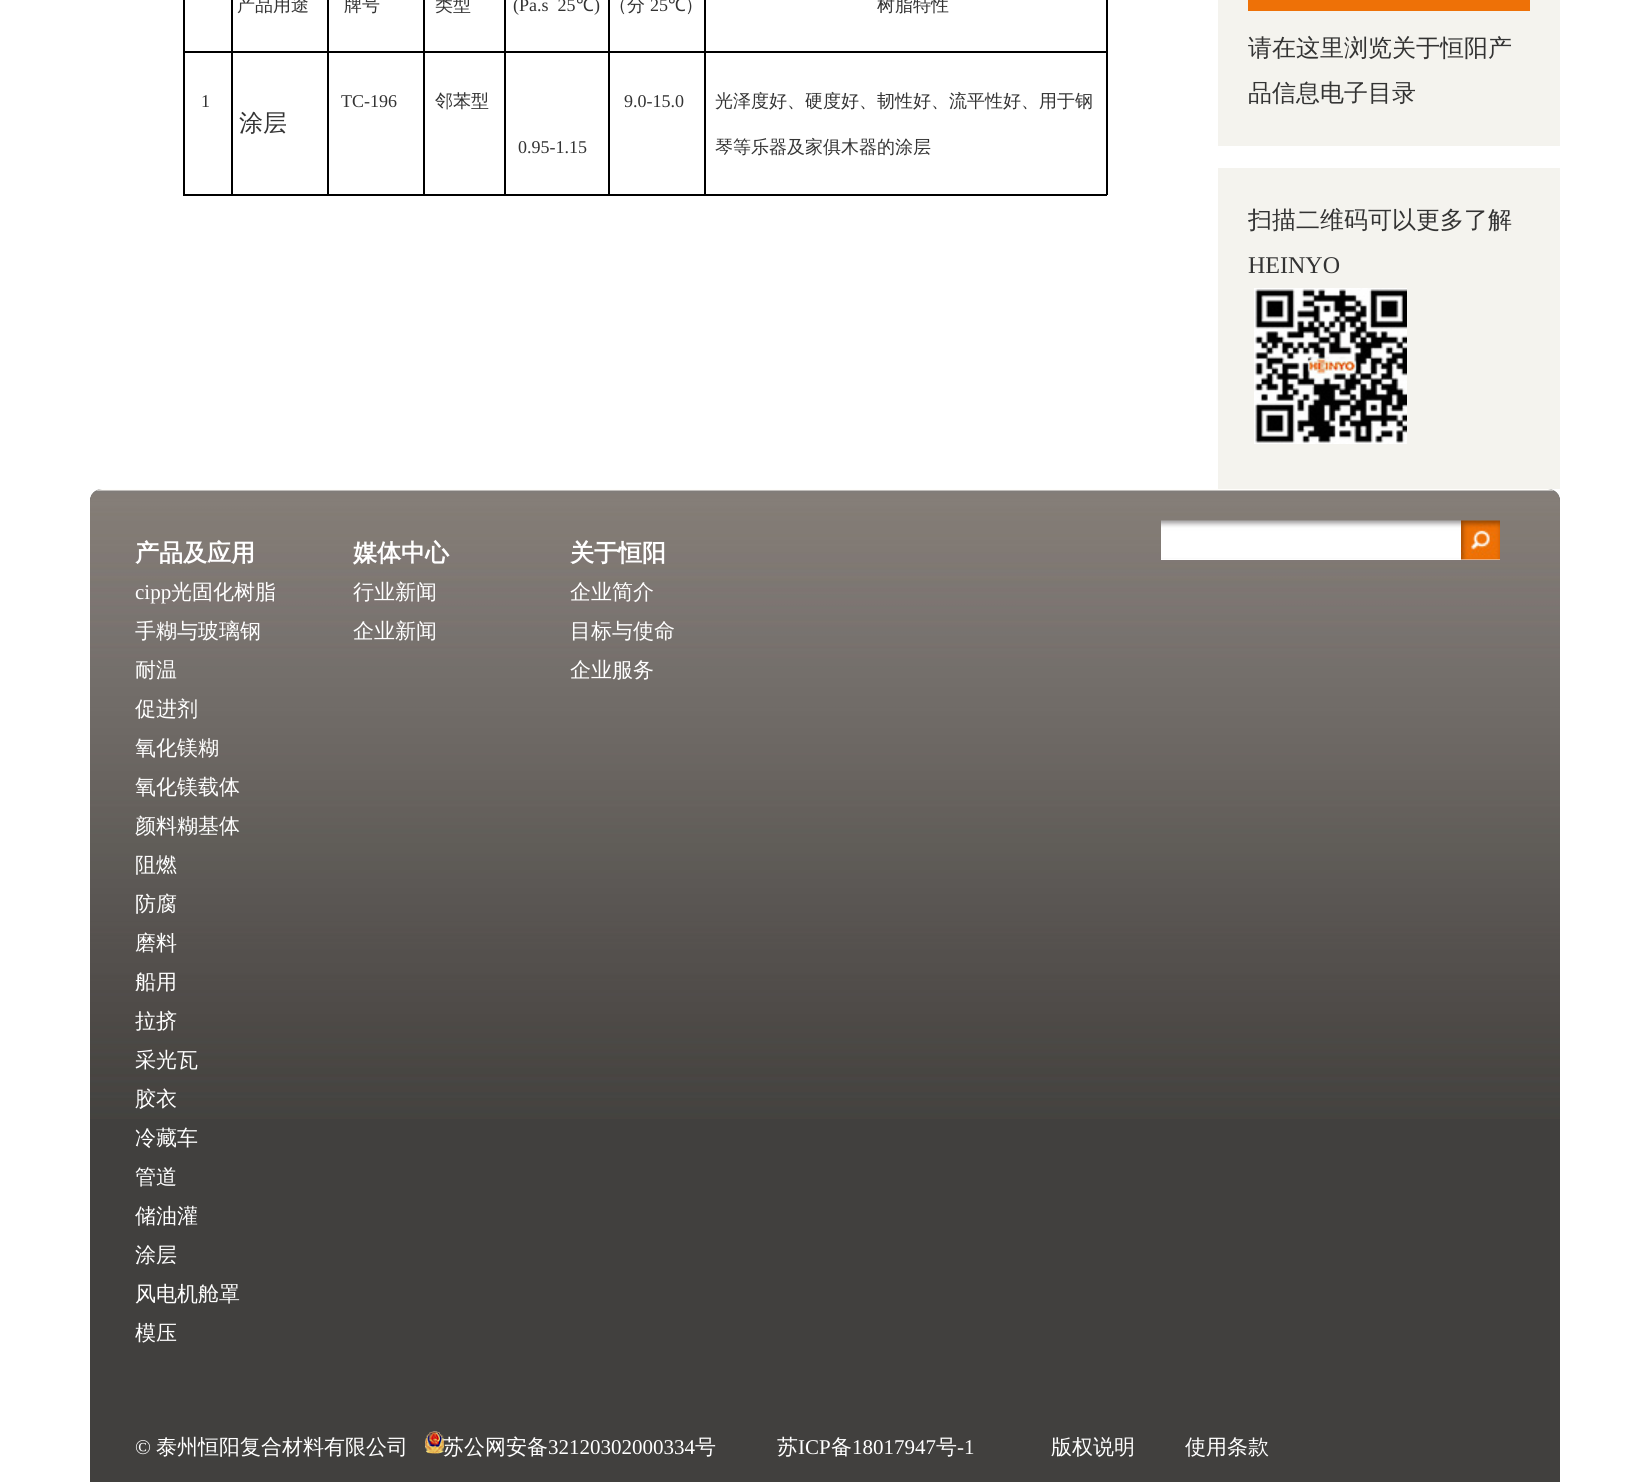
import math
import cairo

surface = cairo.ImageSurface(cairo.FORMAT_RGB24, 1649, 1482)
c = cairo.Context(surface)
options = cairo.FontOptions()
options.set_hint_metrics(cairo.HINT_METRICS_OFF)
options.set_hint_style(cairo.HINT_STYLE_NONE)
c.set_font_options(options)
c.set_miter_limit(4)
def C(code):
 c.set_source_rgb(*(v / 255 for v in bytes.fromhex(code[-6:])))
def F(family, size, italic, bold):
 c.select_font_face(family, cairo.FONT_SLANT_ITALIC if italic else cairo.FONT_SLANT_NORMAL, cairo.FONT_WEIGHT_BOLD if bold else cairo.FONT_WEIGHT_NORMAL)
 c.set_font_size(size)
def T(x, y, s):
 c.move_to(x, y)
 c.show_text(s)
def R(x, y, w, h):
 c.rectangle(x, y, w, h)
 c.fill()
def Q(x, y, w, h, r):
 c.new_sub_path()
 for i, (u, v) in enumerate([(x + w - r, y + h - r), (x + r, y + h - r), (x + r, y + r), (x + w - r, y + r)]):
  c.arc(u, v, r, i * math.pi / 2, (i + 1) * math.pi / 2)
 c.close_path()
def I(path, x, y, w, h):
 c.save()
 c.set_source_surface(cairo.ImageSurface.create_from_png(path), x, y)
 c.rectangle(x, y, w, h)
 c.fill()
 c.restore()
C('ffffff')
c.paint()
C('000000')
R(704,51,403,2)
R(1106,0,2,195)
R(704,194,403,2)
R(704,51,2,144)
R(608,51,97,2)
R(608,194,97,2)
R(608,51,2,144)
R(504,51,105,2)
R(504,194,105,2)
R(504,51,2,144)
R(423,51,83,2)
R(423,194,83,2)
R(423,51,2,144)
R(327,51,98,2)
R(327,194,98,2)
R(327,51,2,144)
R(231,51,98,2)
R(231,194,98,2)
R(231,51,2,144)
R(183,51,50,2)
R(231,0,2,53)
F('WenQuanYi Zen Hei Medium',18,0,0)
C('333333')
T(237,11,'产品用途')
C('000000')
R(327,0,2,53)
C('333333')
T(344,11,'牌号')
C('000000')
R(423,0,2,53)
C('333333')
T(435,11,'类型')
C('000000')
R(504,0,2,53)
F('Liberation Serif',18,0,0)
C('333333')
T(513,11,'(Pa.s  25')
F('Noto Sans',18,0,0)
T(576,11,'℃')
F('Liberation Serif',18,0,0)
T(594,11,')')
C('000000')
R(608,0,2,53)
F('WenQuanYi Zen Hei Medium',18,0,0)
C('333333')
T(609,11,'（分')
F('Liberation Serif',18,0,0)
T(650,11,'25')
F('Noto Sans',18,0,0)
T(668,11,'℃')
F('WenQuanYi Zen Hei Medium',18,0,0)
T(685,11,'）')
C('000000')
R(704,0,2,53)
C('333333')
T(877,11,'树脂特性')
C('000000')
R(183,194,50,2)
R(183,0,2,195)
F('Liberation Serif',18,0,0)
C('333333')
T(201,107,'1')
T(341,107,'TC-196')
F('WenQuanYi Zen Hei Medium',18,0,0)
T(435,107,'邻苯型')
F('Liberation Serif',18,0,0)
T(624,107,'9.0-15.0')
F('WenQuanYi Zen Hei Medium',18,0,0)
T(715,107,'光泽度好、硬度好、韧性好、流平性好、用于钢')
T(715,153,'琴等乐器及家俱木器的涂层')
F('WenQuanYi Zen Hei Medium',24,0,0)
T(239,131,'涂层')
F('Liberation Serif',18,0,0)
T(518,153,'0.95-1.15')
C('f4f3ee')
R(1218,0,342,146)
C('ee7107')
R(1248,0,282,11)
F('WenQuanYi Zen Hei Medium',24,0,0)
C('333333')
T(1248,56,'请在这里浏览关于恒阳产')
T(1248,101,'品信息电子目录')
C('f4f3ee')
R(1218,168,342,321)
C('333333')
T(1248,228,'扫描二维码可以更多了解')
F('Liberation Serif',24,0,0)
T(1248,273,'HEINYO')
I('1.png',1254,288,153,156)
C('41403e')
Q(90,489,1470,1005,12)
c.fill()
I('2.png',90,489,1470,630)
F('WenQuanYi Zen Hei',24,0,1)
C('ffffff')
T(135,561,'产品及应用')
F('Liberation Serif',21,0,0)
T(135,599,'cipp')
F('WenQuanYi Zen Hei Medium',21,0,0)
T(171,599,'光固化树脂')
T(135,638,'手糊与玻璃钢')
T(135,677,'耐温')
T(135,716,'促进剂')
T(135,755,'氧化镁糊')
T(135,794,'氧化镁载体')
T(135,833,'颜料糊基体')
T(135,872,'阻燃')
T(135,911,'防腐')
T(135,950,'磨料')
T(135,989,'船用')
T(135,1028,'拉挤')
T(135,1067,'采光瓦')
T(135,1106,'胶衣')
T(135,1145,'冷藏车')
T(135,1184,'管道')
T(135,1223,'储油灌')
T(135,1262,'涂层')
T(135,1301,'风电机舱罩')
T(135,1340,'模压')
F('WenQuanYi Zen Hei',24,0,1)
T(353,561,'媒体中心')
F('WenQuanYi Zen Hei Medium',21,0,0)
T(353,599,'行业新闻')
T(353,638,'企业新闻')
F('WenQuanYi Zen Hei',24,0,1)
T(570,561,'关于恒阳')
F('WenQuanYi Zen Hei Medium',21,0,0)
T(570,599,'企业简介')
T(570,638,'目标与使命')
T(570,677,'企业服务')
R(1161,559,300,1)
I('3.png',1161,520,300,39)
C('efefef')
R(1461,559,39,1)
I('4.png',1461,520,39,40)
F('Liberation Serif',21,0,0)
C('ffffff')
T(135,1454,'©')
F('WenQuanYi Zen Hei Medium',21,0,0)
T(156,1454,'泰州恒阳复合材料有限公司')
I('5.png',425,1431,19,23)
T(443,1454,'苏公网安备')
F('Liberation Serif',21,0,0)
T(548,1454,'32120302000334')
F('WenQuanYi Zen Hei Medium',21,0,0)
T(695,1454,'号')
T(777,1454,'苏')
F('Liberation Serif',21,0,0)
T(798,1454,'ICP')
F('WenQuanYi Zen Hei Medium',21,0,0)
T(831,1454,'备')
F('Liberation Serif',21,0,0)
T(852,1454,'18017947')
F('WenQuanYi Zen Hei Medium',21,0,0)
T(936,1454,'号')
F('Liberation Serif',21,0,0)
T(957,1454,'-1')
F('WenQuanYi Zen Hei Medium',21,0,0)
T(1051,1454,'版权说明')
T(1185,1454,'使用条款')
surface.write_to_png('o.png')
